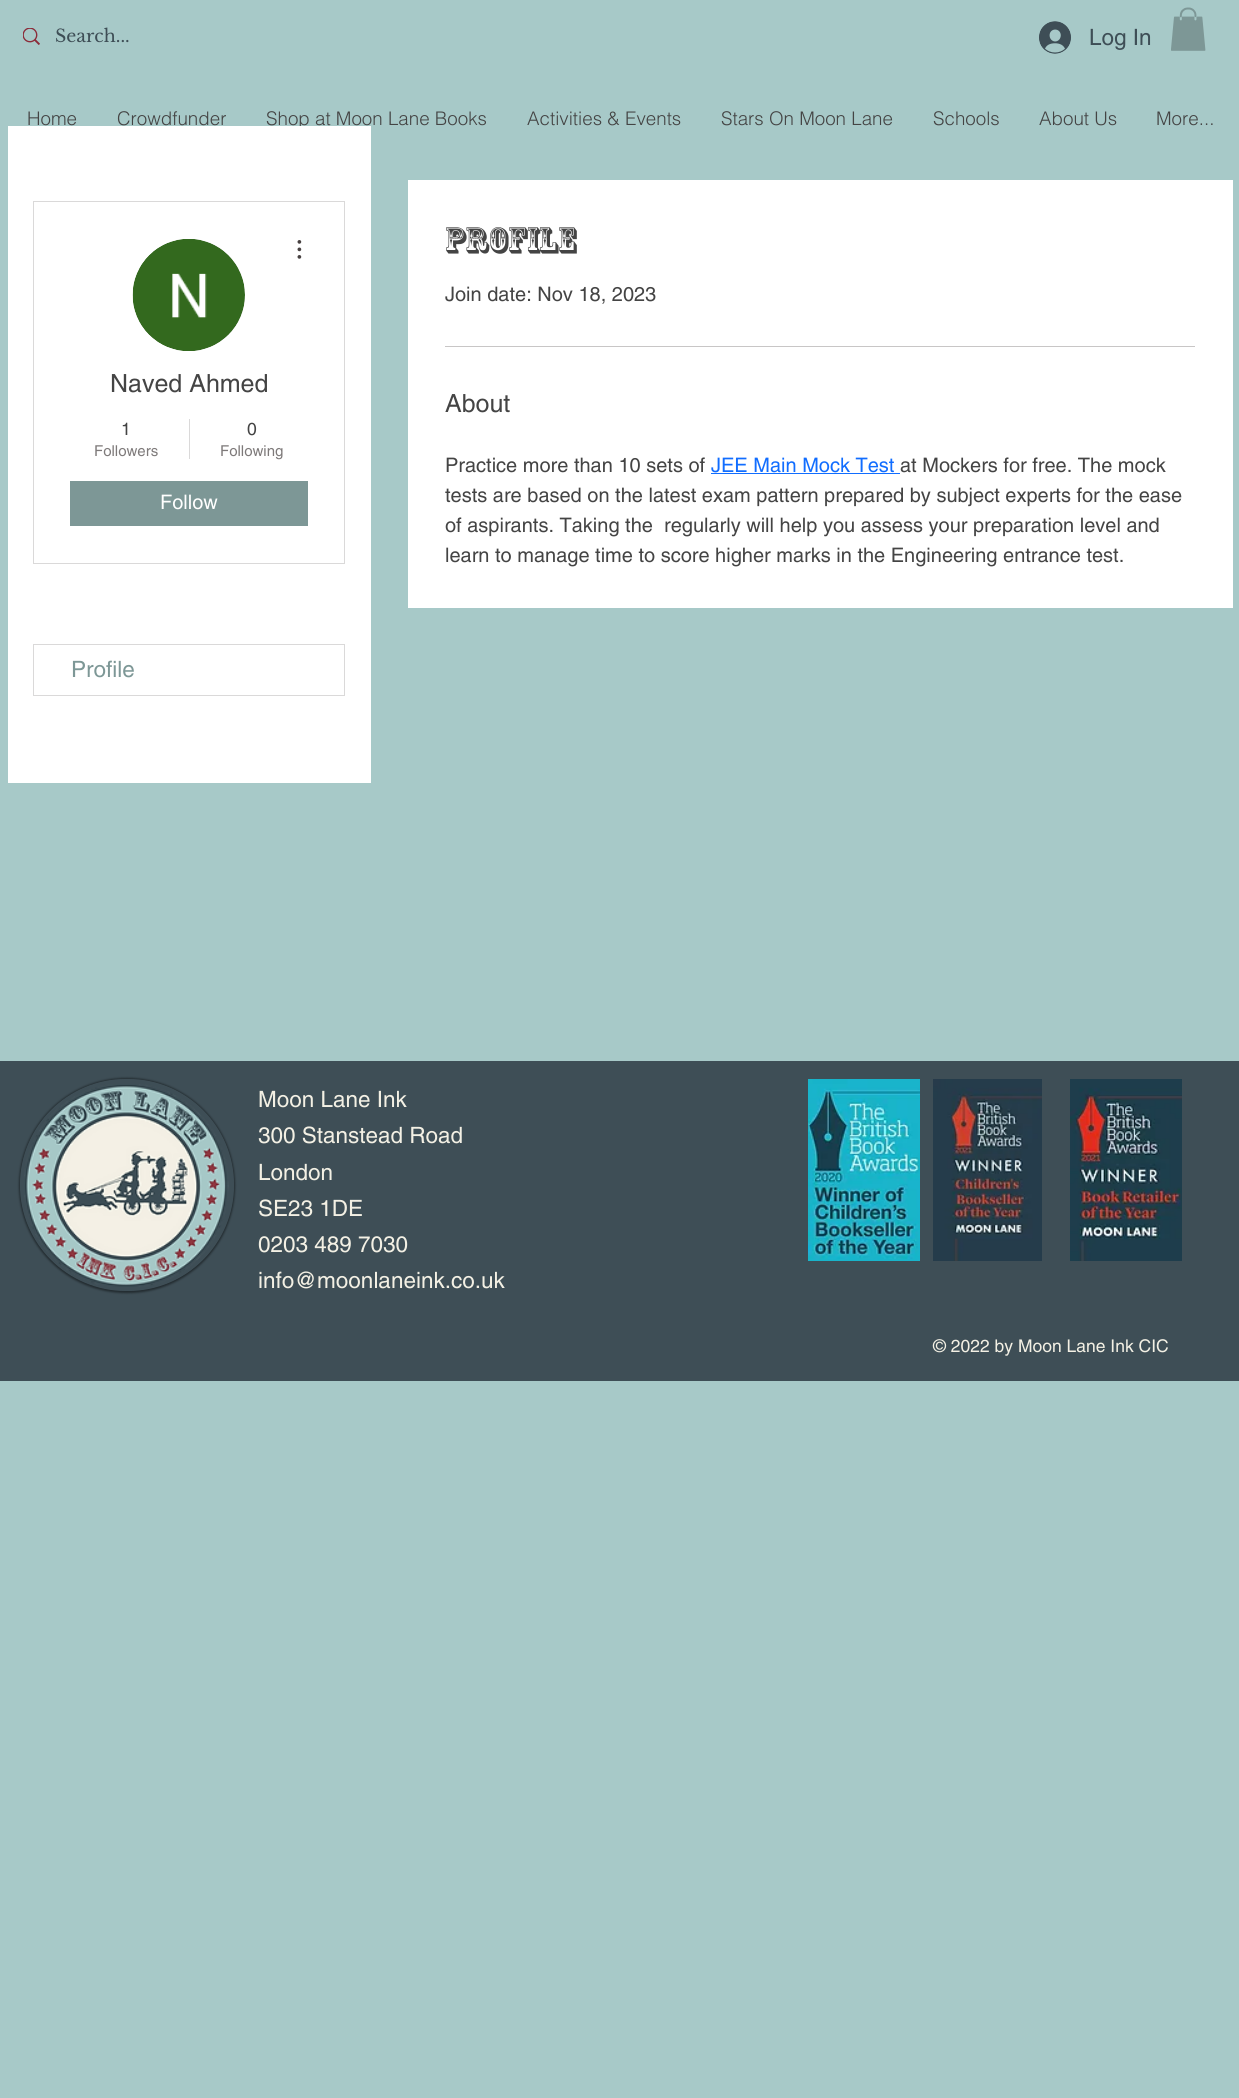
import math
import cairo

surface = cairo.ImageSurface(cairo.FORMAT_RGB24, 1239, 2098)
c = cairo.Context(surface)
options = cairo.FontOptions()
options.set_hint_metrics(cairo.HINT_METRICS_OFF)
options.set_hint_style(cairo.HINT_STYLE_NONE)
c.set_font_options(options)
c.set_miter_limit(4)
def C(code):
 c.set_source_rgb(*(v / 255 for v in bytes.fromhex(code[-6:])))
def F(family, size, italic, bold):
 c.select_font_face(family, cairo.FONT_SLANT_ITALIC if italic else cairo.FONT_SLANT_NORMAL, cairo.FONT_WEIGHT_BOLD if bold else cairo.FONT_WEIGHT_NORMAL)
 c.set_font_size(size)
def T(x, y, s):
 c.move_to(x, y)
 c.show_text(s)
def R(x, y, w, h):
 c.rectangle(x, y, w, h)
 c.fill()
def Q(x, y, w, h, r):
 c.new_sub_path()
 for i, (u, v) in enumerate([(x + w - r, y + h - r), (x + r, y + h - r), (x + r, y + r), (x + w - r, y + r)]):
  c.arc(u, v, r, i * math.pi / 2, (i + 1) * math.pi / 2)
 c.close_path()
def S(x, y, w, h, r, blur, alpha):
 c.push_group_with_content(cairo.CONTENT_ALPHA)
 c.set_operator(cairo.OPERATOR_SOURCE)
 for i in range(15, -16, -2):
  e = blur * i / 6
  if min(w, h) + 2 * e > 0:
   c.set_source_rgba(0, 0, 0, alpha * math.erfc((i - 1) / 8.5) / 2)
   Q(x - e, y - e, w + 2 * e, h + 2 * e, max(0, min(r + e + blur * .6, min(w, h) / 2 + e)))
   c.fill()
 c.mask(c.pop_group())
def I(path, x, y, w, h):
 c.save()
 c.set_source_surface(cairo.ImageSurface.create_from_png(path), x, y)
 c.rectangle(x, y, w, h)
 c.fill()
 c.restore()
C('a7c9c8')
c.paint()
I('1.png',23,28,17,17)
F('Libre Baskerville',17.5,0,0)
C('3e4e56')
T(55,42,'Search...')
I('2.png',1039,21,32,33)
F('helvetica',22.5,0,0)
T(1089,45,'Log In')
I('3.png',1171,7,35,44)
F('helvetica Light',18.75,0,0)
C('444444')
T(27,125,'Home')
T(117,125,'Crowdfunder')
T(266,125,'Shop at Moon Lane Books')
T(527,125,'Activities & Events')
T(721,125,'Stars On Moon Lane')
T(933,125,'Schools')
T(1039,125,'About Us')
T(1156,125,'More...')
C('ffffff')
R(8,126,363,657)
c.rectangle(33.5,201.5,311,362)
C('dad9d9')
c.set_line_width(1)
c.stroke()
C('d8d8d8')
c.arc(189,295,56,0,2 * math.pi)
c.fill()
I('4.png',132,239,113,112)
I('5.png',297,240,5,19)
F('helvetica',25,0,0)
C('444444')
T(110,392,'Naved Ahmed')
F('helvetica',17.5,0,0)
T(121,435,'1')
F('helvetica',15,0,0)
C('7e7a7a')
T(94,456,'Followers')
C('dad9d9')
R(189,419,1,40)
F('helvetica',17.5,0,0)
C('444444')
T(247,435,'0')
F('helvetica',15,0,0)
C('7e7a7a')
T(220,456,'Following')
C('7d9796')
R(70,481,238,45)
F('helvetica',20,0,0)
C('ffffff')
T(160,509,'Follow')
c.rectangle(33.5,644.5,311,51)
C('dad9d9')
c.stroke()
F('helvetica',22.5,0,0)
C('7d9796')
T(71,677,'Profile')
C('ffffff')
R(408,180,825,428)
F('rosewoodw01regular',35,0,0)
C('444444')
T(445,250,'Profile')
F('helvetica',20,0,0)
T(445,301,'Join date: Nov 18, 2023')
C('c8c6c6')
R(445,346,750,1)
F('helvetica',25,0,0)
C('444444')
T(445,412,'About')
F('helvetica',20,0,0)
T(445,472,'Practice more than 10 sets of')
C('116dff')
T(711,472,'JEE Main Mock Test')
R(711,473,189,1)
C('444444')
T(900,472,'at Mockers for free. The mock')
T(445,502,'tests are based on the latest exam pattern prepared by subject experts for the ease')
T(445,532,'of aspirants. Taking the  regularly will help you assess your preparation level and')
T(445,562,'learn to manage time to score higher marks in the Engineering entrance test.')
C('3e4e56')
R(0,1061,1239,320)
c.save()
c.set_fill_rule(cairo.FILL_RULE_EVEN_ODD)
c.new_path()
c.move_to(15,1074)
c.line_to(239,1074)
c.line_to(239,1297)
c.line_to(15,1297)
c.close_path()
c.move_to(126,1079)
c.line_to(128,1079)
c.curve_to(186.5,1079,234,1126.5,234,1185)
c.curve_to(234,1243.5,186.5,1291,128,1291)
c.line_to(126,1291)
c.curve_to(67.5,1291,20,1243.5,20,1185)
c.curve_to(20,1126.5,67.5,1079,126,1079)
c.close_path()
c.clip()
C('000000')
S(19,1078,216,215,107.5,1,.45)
c.restore()
I('6.png',24,1084,205,203)
F('helvetica',22.5,0,0)
C('f3f0e4')
T(258,1107,'Moon Lane Ink')
T(258,1143,'300 Stanstead Road')
T(258,1180,'London')
T(258,1216,'SE23 1DE')
T(258,1252,'0203 489 7030')
T(258,1288,'info@moonlaneink.co.uk')
I('7.png',808,1079,112,182)
I('8.png',933,1079,109,182)
I('9.png',1070,1079,112,182)
F('helvetica',17.5,0,0)
T(933,1352,'© 2022 by Moon Lane Ink CIC')
surface.write_to_png('o.png')
